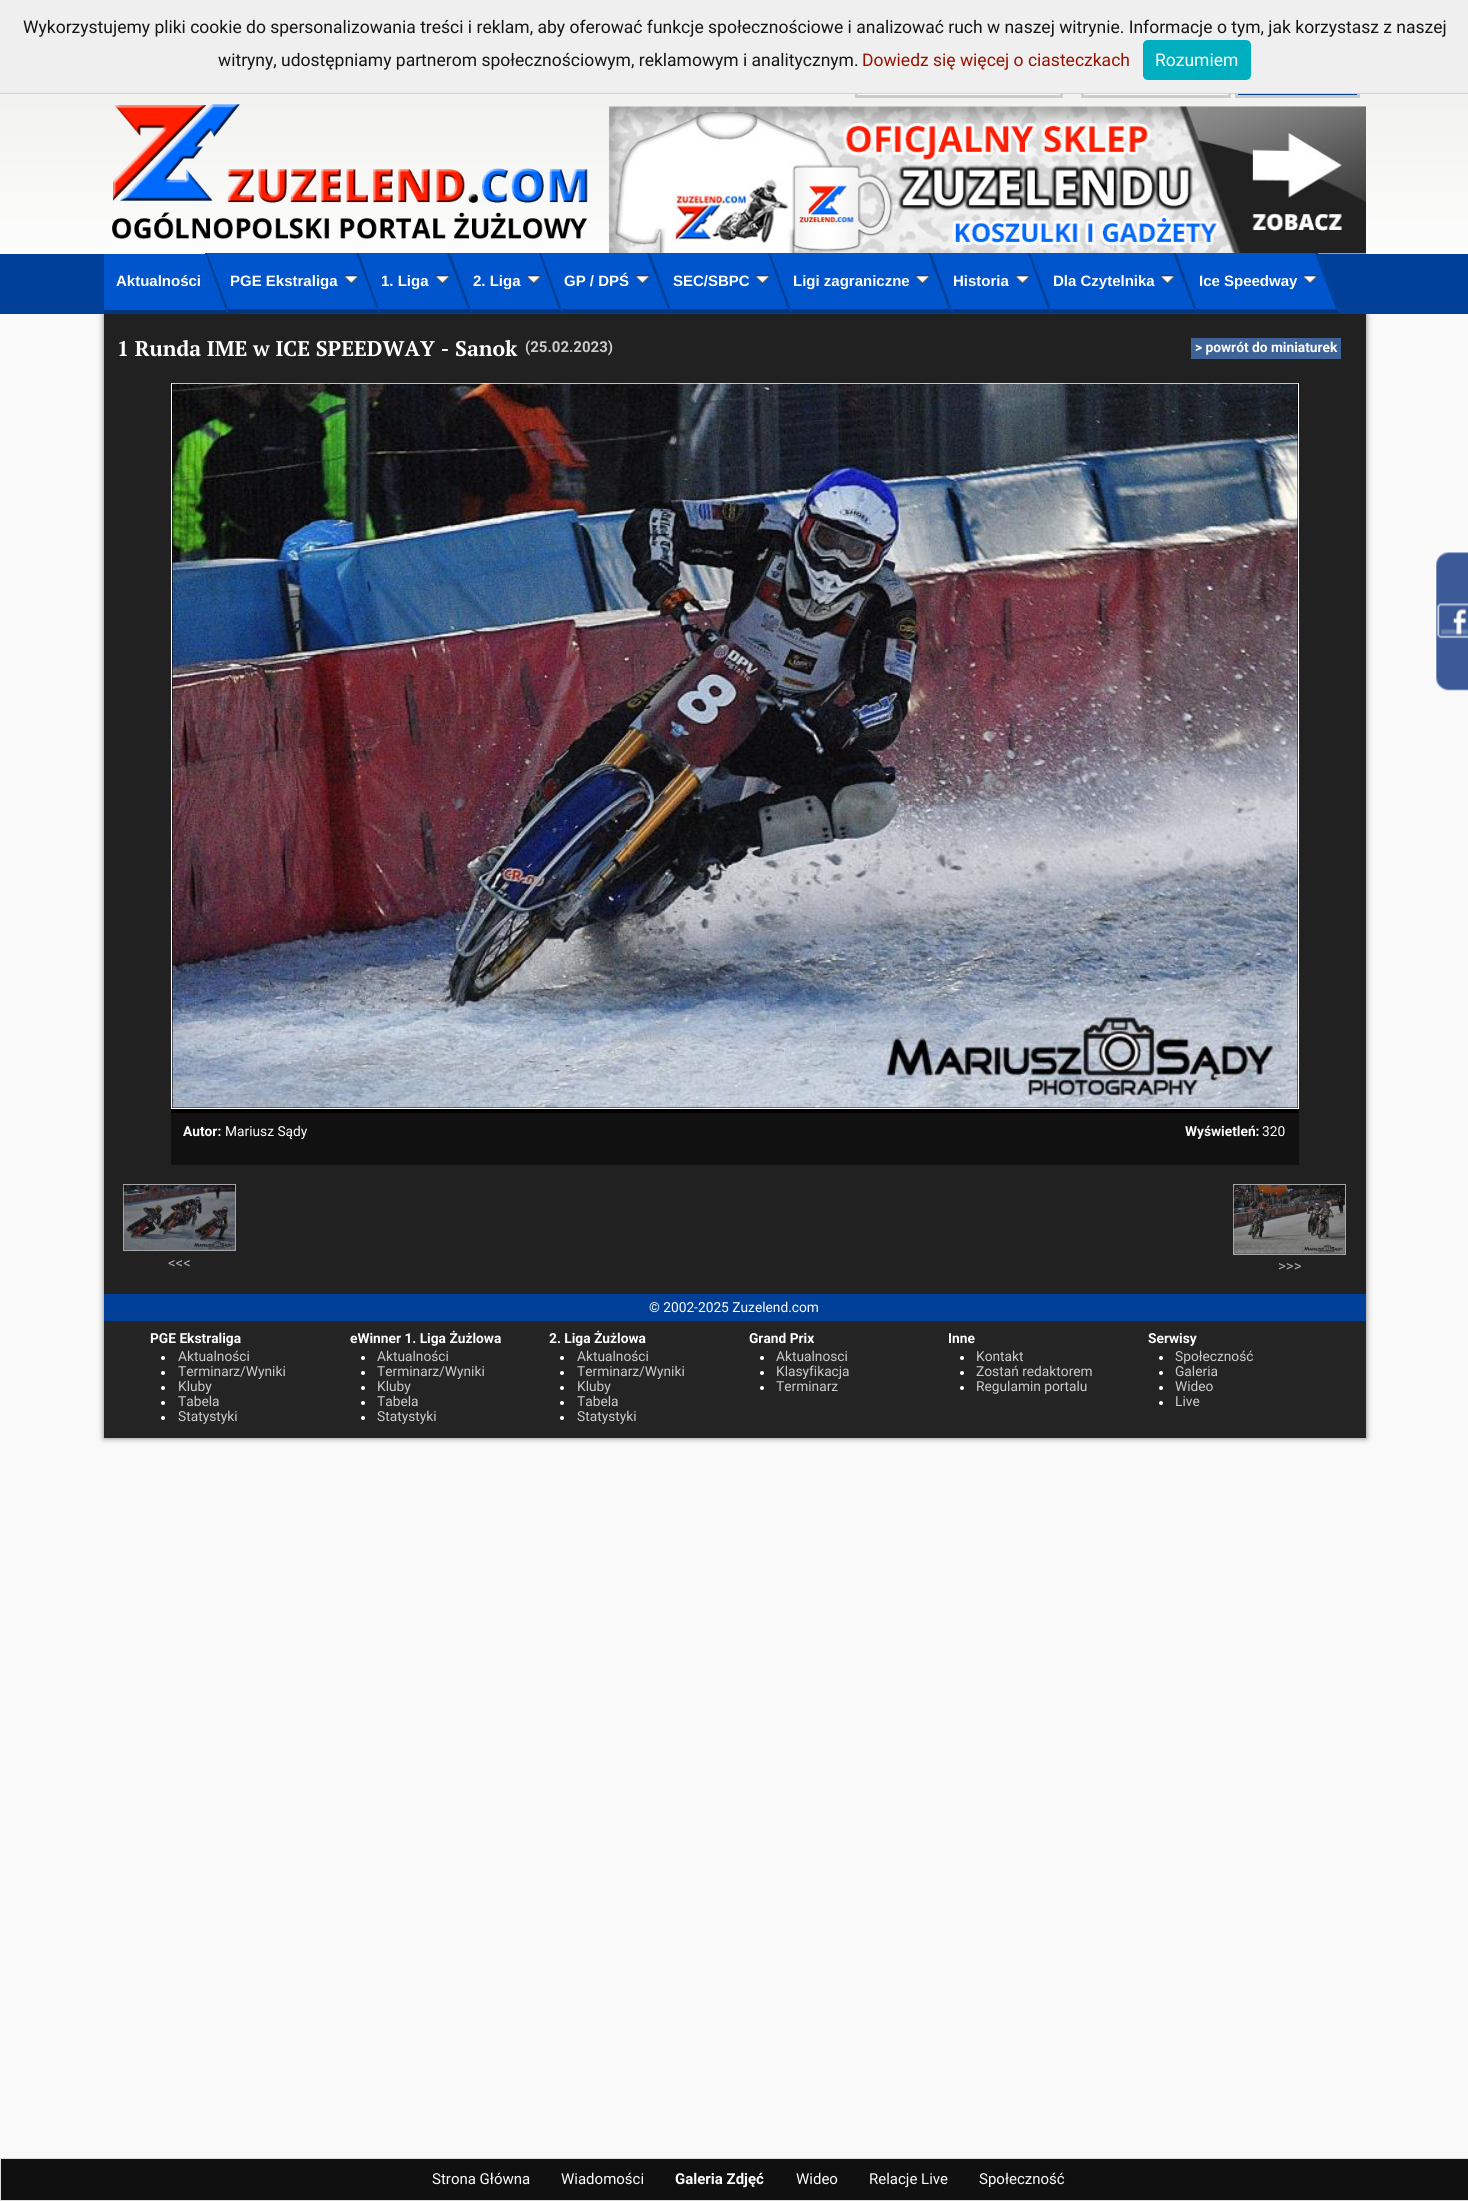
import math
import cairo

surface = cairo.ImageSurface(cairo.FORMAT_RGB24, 1468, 2201)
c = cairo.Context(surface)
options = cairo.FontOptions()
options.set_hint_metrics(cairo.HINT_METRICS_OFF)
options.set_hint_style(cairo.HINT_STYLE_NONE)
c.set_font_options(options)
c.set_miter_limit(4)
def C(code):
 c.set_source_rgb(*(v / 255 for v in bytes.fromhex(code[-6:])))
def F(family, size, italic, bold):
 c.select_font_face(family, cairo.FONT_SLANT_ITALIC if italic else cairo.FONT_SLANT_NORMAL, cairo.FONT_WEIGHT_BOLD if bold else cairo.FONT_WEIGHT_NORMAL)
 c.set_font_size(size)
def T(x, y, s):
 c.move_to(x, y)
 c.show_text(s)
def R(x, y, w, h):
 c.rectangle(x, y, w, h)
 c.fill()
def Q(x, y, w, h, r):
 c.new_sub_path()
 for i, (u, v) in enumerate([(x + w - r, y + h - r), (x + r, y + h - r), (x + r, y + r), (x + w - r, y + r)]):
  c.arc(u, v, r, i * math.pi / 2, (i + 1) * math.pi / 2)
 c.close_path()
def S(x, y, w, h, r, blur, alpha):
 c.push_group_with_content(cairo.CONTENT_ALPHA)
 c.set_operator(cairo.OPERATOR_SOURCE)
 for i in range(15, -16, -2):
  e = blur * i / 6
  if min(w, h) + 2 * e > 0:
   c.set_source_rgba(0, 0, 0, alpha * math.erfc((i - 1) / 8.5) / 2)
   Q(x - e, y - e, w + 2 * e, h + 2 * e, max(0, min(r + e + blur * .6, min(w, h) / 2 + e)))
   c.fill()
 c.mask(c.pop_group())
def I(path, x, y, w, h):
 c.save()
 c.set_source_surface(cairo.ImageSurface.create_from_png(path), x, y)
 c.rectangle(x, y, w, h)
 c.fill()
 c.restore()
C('f9f9f9')
c.paint()
gradient = cairo.LinearGradient(734,59,734,254)
gradient.add_color_stop_rgba(0,0.937,0.937,0.925,1)
gradient.add_color_stop_rgba(1,0.992,0.992,0.992,1)
c.set_source(gradient)
R(0,94,1468,160)
C('ffffff')
R(858,94,202,1)
c.rectangle(856.5,70.5,205,26)
C('cccccc')
c.set_line_width(3)
c.stroke()
C('ffffff')
R(1084,94,144,1)
c.rectangle(1082.5,69.5,147,27)
C('cccccc')
c.stroke()
gradient = cairo.LinearGradient(1298,71,1298,95)
gradient.add_color_stop_rgba(0,0,0.333,0.8,1)
gradient.add_color_stop_rgba(1,0,0.251,0.6,1)
c.set_source(gradient)
R(1238,94,119,1)
c.rectangle(1236.5,70.5,122,26)
C('cccccc')
c.stroke()
C('efefef')
R(0,0,1468,93)
C('d3d0d0')
R(0,93,1468,1)
F('Roboto',17.5,0,0)
C('151515')
T(23,33,'Wykorzystujemy pliki cookie do spersonalizowania treści i reklam, aby oferować funkcje społecznościowe i analizować ruch w naszej witrynie. Informacje o tym, jak korzystasz z naszej')
T(218,66,'witryny, udostępniamy partnerom społecznościowym, reklamowym i analitycznym.')
C('991200')
T(862,66,'Dowiedz się więcej o ciasteczkach')
C('00afbf')
Q(1143,40,108,40,5)
c.fill()
C('ffffff')
T(1155,66,'Rozumiem')
I('1.png',112,104,476,135)
I('2.png',608,106,758,148)
C('747474')
S(104,314,1262,1124,0,3,1)
C('004099')
R(0,254,1468,60)
C('0055cc')
R(104,254,137,60)
C('003580')
c.new_path()
c.move_to(241,314)
c.line_to(104,314)
c.line_to(104,310)
c.line_to(239,310)
c.close_path()
c.fill()
F('Arimo',15,0,1)
C('ffffff')
T(116,286,'Aktualności')
C('0055cc')
c.new_path()
c.move_to(1176,253)
c.line_to(1318,253)
c.line_to(1340,313)
c.line_to(1198,313)
c.close_path()
c.fill()
C('004099')
c.new_path()
c.move_to(1318,253)
c.line_to(1340,313)
c.line_to(1336,309)
c.line_to(1315,253)
c.close_path()
c.fill()
C('003580')
c.new_path()
c.move_to(1340,313)
c.line_to(1198,313)
c.line_to(1196,309)
c.line_to(1336,309)
c.close_path()
c.fill()
C('0055cc')
c.new_path()
c.move_to(1030,253)
c.line_to(1176,253)
c.line_to(1198,313)
c.line_to(1052,313)
c.close_path()
c.fill()
C('004099')
c.new_path()
c.move_to(1176,253)
c.line_to(1198,313)
c.line_to(1194,309)
c.line_to(1173,253)
c.close_path()
c.fill()
C('003580')
c.new_path()
c.move_to(1198,313)
c.line_to(1052,313)
c.line_to(1051,309)
c.line_to(1194,309)
c.close_path()
c.fill()
C('0055cc')
c.new_path()
c.move_to(931,253)
c.line_to(1030,253)
c.line_to(1052,313)
c.line_to(953,313)
c.close_path()
c.fill()
C('004099')
c.new_path()
c.move_to(1030,253)
c.line_to(1052,313)
c.line_to(1048,309)
c.line_to(1028,253)
c.close_path()
c.fill()
C('003580')
c.new_path()
c.move_to(1052,313)
c.line_to(953,313)
c.line_to(951,309)
c.line_to(1048,309)
c.close_path()
c.fill()
C('0055cc')
c.new_path()
c.move_to(770,253)
c.line_to(931,253)
c.line_to(953,313)
c.line_to(792,313)
c.close_path()
c.fill()
C('004099')
c.new_path()
c.move_to(931,253)
c.line_to(953,313)
c.line_to(949,309)
c.line_to(928,253)
c.close_path()
c.fill()
C('003580')
c.new_path()
c.move_to(953,313)
c.line_to(792,313)
c.line_to(791,309)
c.line_to(949,309)
c.close_path()
c.fill()
C('0055cc')
c.new_path()
c.move_to(650,253)
c.line_to(770,253)
c.line_to(792,313)
c.line_to(672,313)
c.close_path()
c.fill()
C('004099')
c.new_path()
c.move_to(770,253)
c.line_to(792,313)
c.line_to(788,309)
c.line_to(768,253)
c.close_path()
c.fill()
C('003580')
c.new_path()
c.move_to(792,313)
c.line_to(672,313)
c.line_to(670,309)
c.line_to(788,309)
c.close_path()
c.fill()
C('0055cc')
c.new_path()
c.move_to(541,253)
c.line_to(650,253)
c.line_to(672,313)
c.line_to(563,313)
c.close_path()
c.fill()
C('004099')
c.new_path()
c.move_to(650,253)
c.line_to(672,313)
c.line_to(668,309)
c.line_to(647,253)
c.close_path()
c.fill()
C('003580')
c.new_path()
c.move_to(672,313)
c.line_to(563,313)
c.line_to(562,309)
c.line_to(668,309)
c.close_path()
c.fill()
C('0055cc')
c.new_path()
c.move_to(450,253)
c.line_to(541,253)
c.line_to(563,313)
c.line_to(472,313)
c.close_path()
c.fill()
C('004099')
c.new_path()
c.move_to(541,253)
c.line_to(563,313)
c.line_to(559,309)
c.line_to(539,253)
c.close_path()
c.fill()
C('003580')
c.new_path()
c.move_to(563,313)
c.line_to(472,313)
c.line_to(470,309)
c.line_to(559,309)
c.close_path()
c.fill()
C('0055cc')
c.new_path()
c.move_to(359,253)
c.line_to(450,253)
c.line_to(472,313)
c.line_to(380,313)
c.close_path()
c.fill()
C('004099')
c.new_path()
c.move_to(450,253)
c.line_to(472,313)
c.line_to(468,309)
c.line_to(447,253)
c.close_path()
c.fill()
C('003580')
c.new_path()
c.move_to(472,313)
c.line_to(380,313)
c.line_to(379,309)
c.line_to(468,309)
c.close_path()
c.fill()
C('0055cc')
c.new_path()
c.move_to(205,253)
c.line_to(359,253)
c.line_to(380,313)
c.line_to(227,313)
c.close_path()
c.fill()
C('004099')
c.new_path()
c.move_to(359,253)
c.line_to(380,313)
c.line_to(377,309)
c.line_to(356,253)
c.close_path()
c.fill()
C('003580')
c.new_path()
c.move_to(380,313)
c.line_to(227,313)
c.line_to(228,309)
c.line_to(377,309)
c.close_path()
c.fill()
C('004099')
c.new_path()
c.move_to(227,313)
c.line_to(205,253)
c.line_to(207,253)
c.line_to(228,309)
c.close_path()
c.fill()
C('ffffff')
T(230,286,'PGE Ekstraliga')
I('3.png',344,274,15,10)
T(381,286,'1. Liga')
I('4.png',435,274,15,10)
T(473,286,'2. Liga')
I('5.png',526,274,15,10)
T(564,286,'GP / DPŚ')
I('4.png',635,274,15,10)
T(673,286,'SEC/SBPC')
I('4.png',755,274,15,10)
T(793,286,'Ligi zagraniczne')
I('4.png',915,274,15,10)
T(953,286,'Historia')
I('4.png',1015,274,15,10)
T(1053,286,'Dla Czytelnika')
I('4.png',1160,274,15,10)
T(1199,286,'Ice Speedway')
I('6.png',1303,274,14,10)
C('212121')
R(104,314,1262,980)
F('PT Serif',21.25,0,1)
C('ffffff')
T(117,356,'1 Runda IME w ICE SPEEDWAY - Sanok')
F('Roboto',15,0,1)
C('cccccc')
T(525,352,'(25.02.2023)')
C('3d6399')
R(1191,338,150,21)
F('Roboto',13.75,0,1)
C('ffffff')
T(1195,352,'> powrót do miniaturek')
C('111111')
R(171,1113,1128,52)
C('000000')
R(171,384,1128,729)
c.rectangle(171.5,383.5,1127,725)
C('ffffff')
c.set_line_width(1)
c.stroke()
I('7.png',172,383,1126,725)
T(183,1136,'Autor:')
F('Roboto',13.75,0,0)
T(225,1136,'Mariusz Sądy')
F('Roboto',13.75,0,1)
T(1185,1136,'Wyświetleń:')
F('Roboto',13.75,0,0)
T(1262,1136,'320')
c.rectangle(123.5,1184.5,112,66)
C('a6a6a6')
c.stroke()
I('8.png',123,1185,112,65)
F('Roboto',15,0,0)
T(168,1268,'<<<')
c.rectangle(1233.5,1184.5,112,70)
c.stroke()
I('9.png',1233,1185,112,69)
T(1278,1271,'>>>')
C('004099')
R(104,1294,1262,27)
F('Roboto',13.75,0,0)
C('ffffff')
T(649,1312,'© 2002-2025 Zuzelend.com')
C('252424')
R(104,1321,1262,117)
F('Roboto',13.75,0,1)
C('ffffff')
T(150,1343,'PGE Ekstraliga')
c.new_path()
c.arc(163,1358,2,0,2 * math.pi)
c.fill()
F('Roboto',13.75,0,0)
C('cccccc')
T(178,1361,'Aktualności')
C('ffffff')
c.new_path()
c.arc(163,1373,2,0,2 * math.pi)
c.fill()
C('cccccc')
T(178,1376,'Terminarz/Wyniki')
C('ffffff')
c.new_path()
c.arc(163,1388,2,0,2 * math.pi)
c.fill()
C('cccccc')
T(178,1391,'Kluby')
C('ffffff')
c.new_path()
c.arc(163,1403,2,0,2 * math.pi)
c.fill()
C('cccccc')
T(178,1406,'Tabela')
C('ffffff')
c.new_path()
c.arc(163,1418,2,0,2 * math.pi)
c.fill()
C('cccccc')
T(178,1421,'Statystyki')
F('Roboto',13.75,0,1)
C('ffffff')
T(350,1343,'eWinner 1. Liga Żużlowa')
c.new_path()
c.arc(363,1358,2,0,2 * math.pi)
c.fill()
F('Roboto',13.75,0,0)
C('cccccc')
T(377,1361,'Aktualności')
C('ffffff')
c.new_path()
c.arc(363,1373,2,0,2 * math.pi)
c.fill()
C('cccccc')
T(377,1376,'Terminarz/Wyniki')
C('ffffff')
c.new_path()
c.arc(363,1388,2,0,2 * math.pi)
c.fill()
C('cccccc')
T(377,1391,'Kluby')
C('ffffff')
c.new_path()
c.arc(363,1403,2,0,2 * math.pi)
c.fill()
C('cccccc')
T(377,1406,'Tabela')
C('ffffff')
c.new_path()
c.arc(363,1418,2,0,2 * math.pi)
c.fill()
C('cccccc')
T(377,1421,'Statystyki')
F('Roboto',13.75,0,1)
C('ffffff')
T(549,1343,'2. Liga Żużlowa')
c.new_path()
c.arc(562,1358,2,0,2 * math.pi)
c.fill()
F('Roboto',13.75,0,0)
C('cccccc')
T(577,1361,'Aktualności')
C('ffffff')
c.new_path()
c.arc(562,1373,2,0,2 * math.pi)
c.fill()
C('cccccc')
T(577,1376,'Terminarz/Wyniki')
C('ffffff')
c.new_path()
c.arc(562,1388,2,0,2 * math.pi)
c.fill()
C('cccccc')
T(577,1391,'Kluby')
C('ffffff')
c.new_path()
c.arc(562,1403,2,0,2 * math.pi)
c.fill()
C('cccccc')
T(577,1406,'Tabela')
C('ffffff')
c.new_path()
c.arc(562,1418,2,0,2 * math.pi)
c.fill()
C('cccccc')
T(577,1421,'Statystyki')
F('Roboto',13.75,0,1)
C('ffffff')
T(749,1343,'Grand Prix')
c.new_path()
c.arc(762,1358,2,0,2 * math.pi)
c.fill()
F('Roboto',13.75,0,0)
C('cccccc')
T(776,1361,'Aktualnosci')
C('ffffff')
c.new_path()
c.arc(762,1373,2,0,2 * math.pi)
c.fill()
C('cccccc')
T(776,1376,'Klasyfikacja')
C('ffffff')
c.new_path()
c.arc(762,1388,2,0,2 * math.pi)
c.fill()
C('cccccc')
T(776,1391,'Terminarz')
F('Roboto',13.75,0,1)
C('ffffff')
T(948,1343,'Inne')
c.new_path()
c.arc(962,1358,2,0,2 * math.pi)
c.fill()
F('Roboto',13.75,0,0)
C('cccccc')
T(976,1361,'Kontakt')
C('ffffff')
c.new_path()
c.arc(962,1373,2,0,2 * math.pi)
c.fill()
C('cccccc')
T(976,1376,'Zostań redaktorem')
C('ffffff')
c.new_path()
c.arc(962,1388,2,0,2 * math.pi)
c.fill()
C('cccccc')
T(976,1391,'Regulamin portalu')
F('Roboto',13.75,0,1)
C('ffffff')
T(1148,1343,'Serwisy')
c.new_path()
c.arc(1161,1358,2,0,2 * math.pi)
c.fill()
F('Roboto',13.75,0,0)
C('cccccc')
T(1175,1361,'Społeczność')
C('ffffff')
c.new_path()
c.arc(1161,1373,2,0,2 * math.pi)
c.fill()
C('cccccc')
T(1175,1376,'Galeria')
C('ffffff')
c.new_path()
c.arc(1161,1388,2,0,2 * math.pi)
c.fill()
C('cccccc')
T(1175,1391,'Wideo')
C('ffffff')
c.new_path()
c.arc(1161,1403,2,0,2 * math.pi)
c.fill()
C('cccccc')
T(1175,1406,'Live')
C('101010')
c.rectangle(.5,2158.5,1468,42)
c.fill_preserve()
C('dddddd')
c.stroke()
F('Roboto',15,0,0)
C('ffffff')
T(432,2184,'Strona Główna')
T(561,2184,'Wiadomości')
F('Roboto',15,0,1)
T(675,2184,'Galeria Zdjęć')
F('Roboto',15,0,0)
T(796,2184,'Wideo')
T(869,2184,'Relacje Live')
T(979,2184,'Społeczność')
I('10.png',1435,552,33,139)
surface.write_to_png('o.png')
